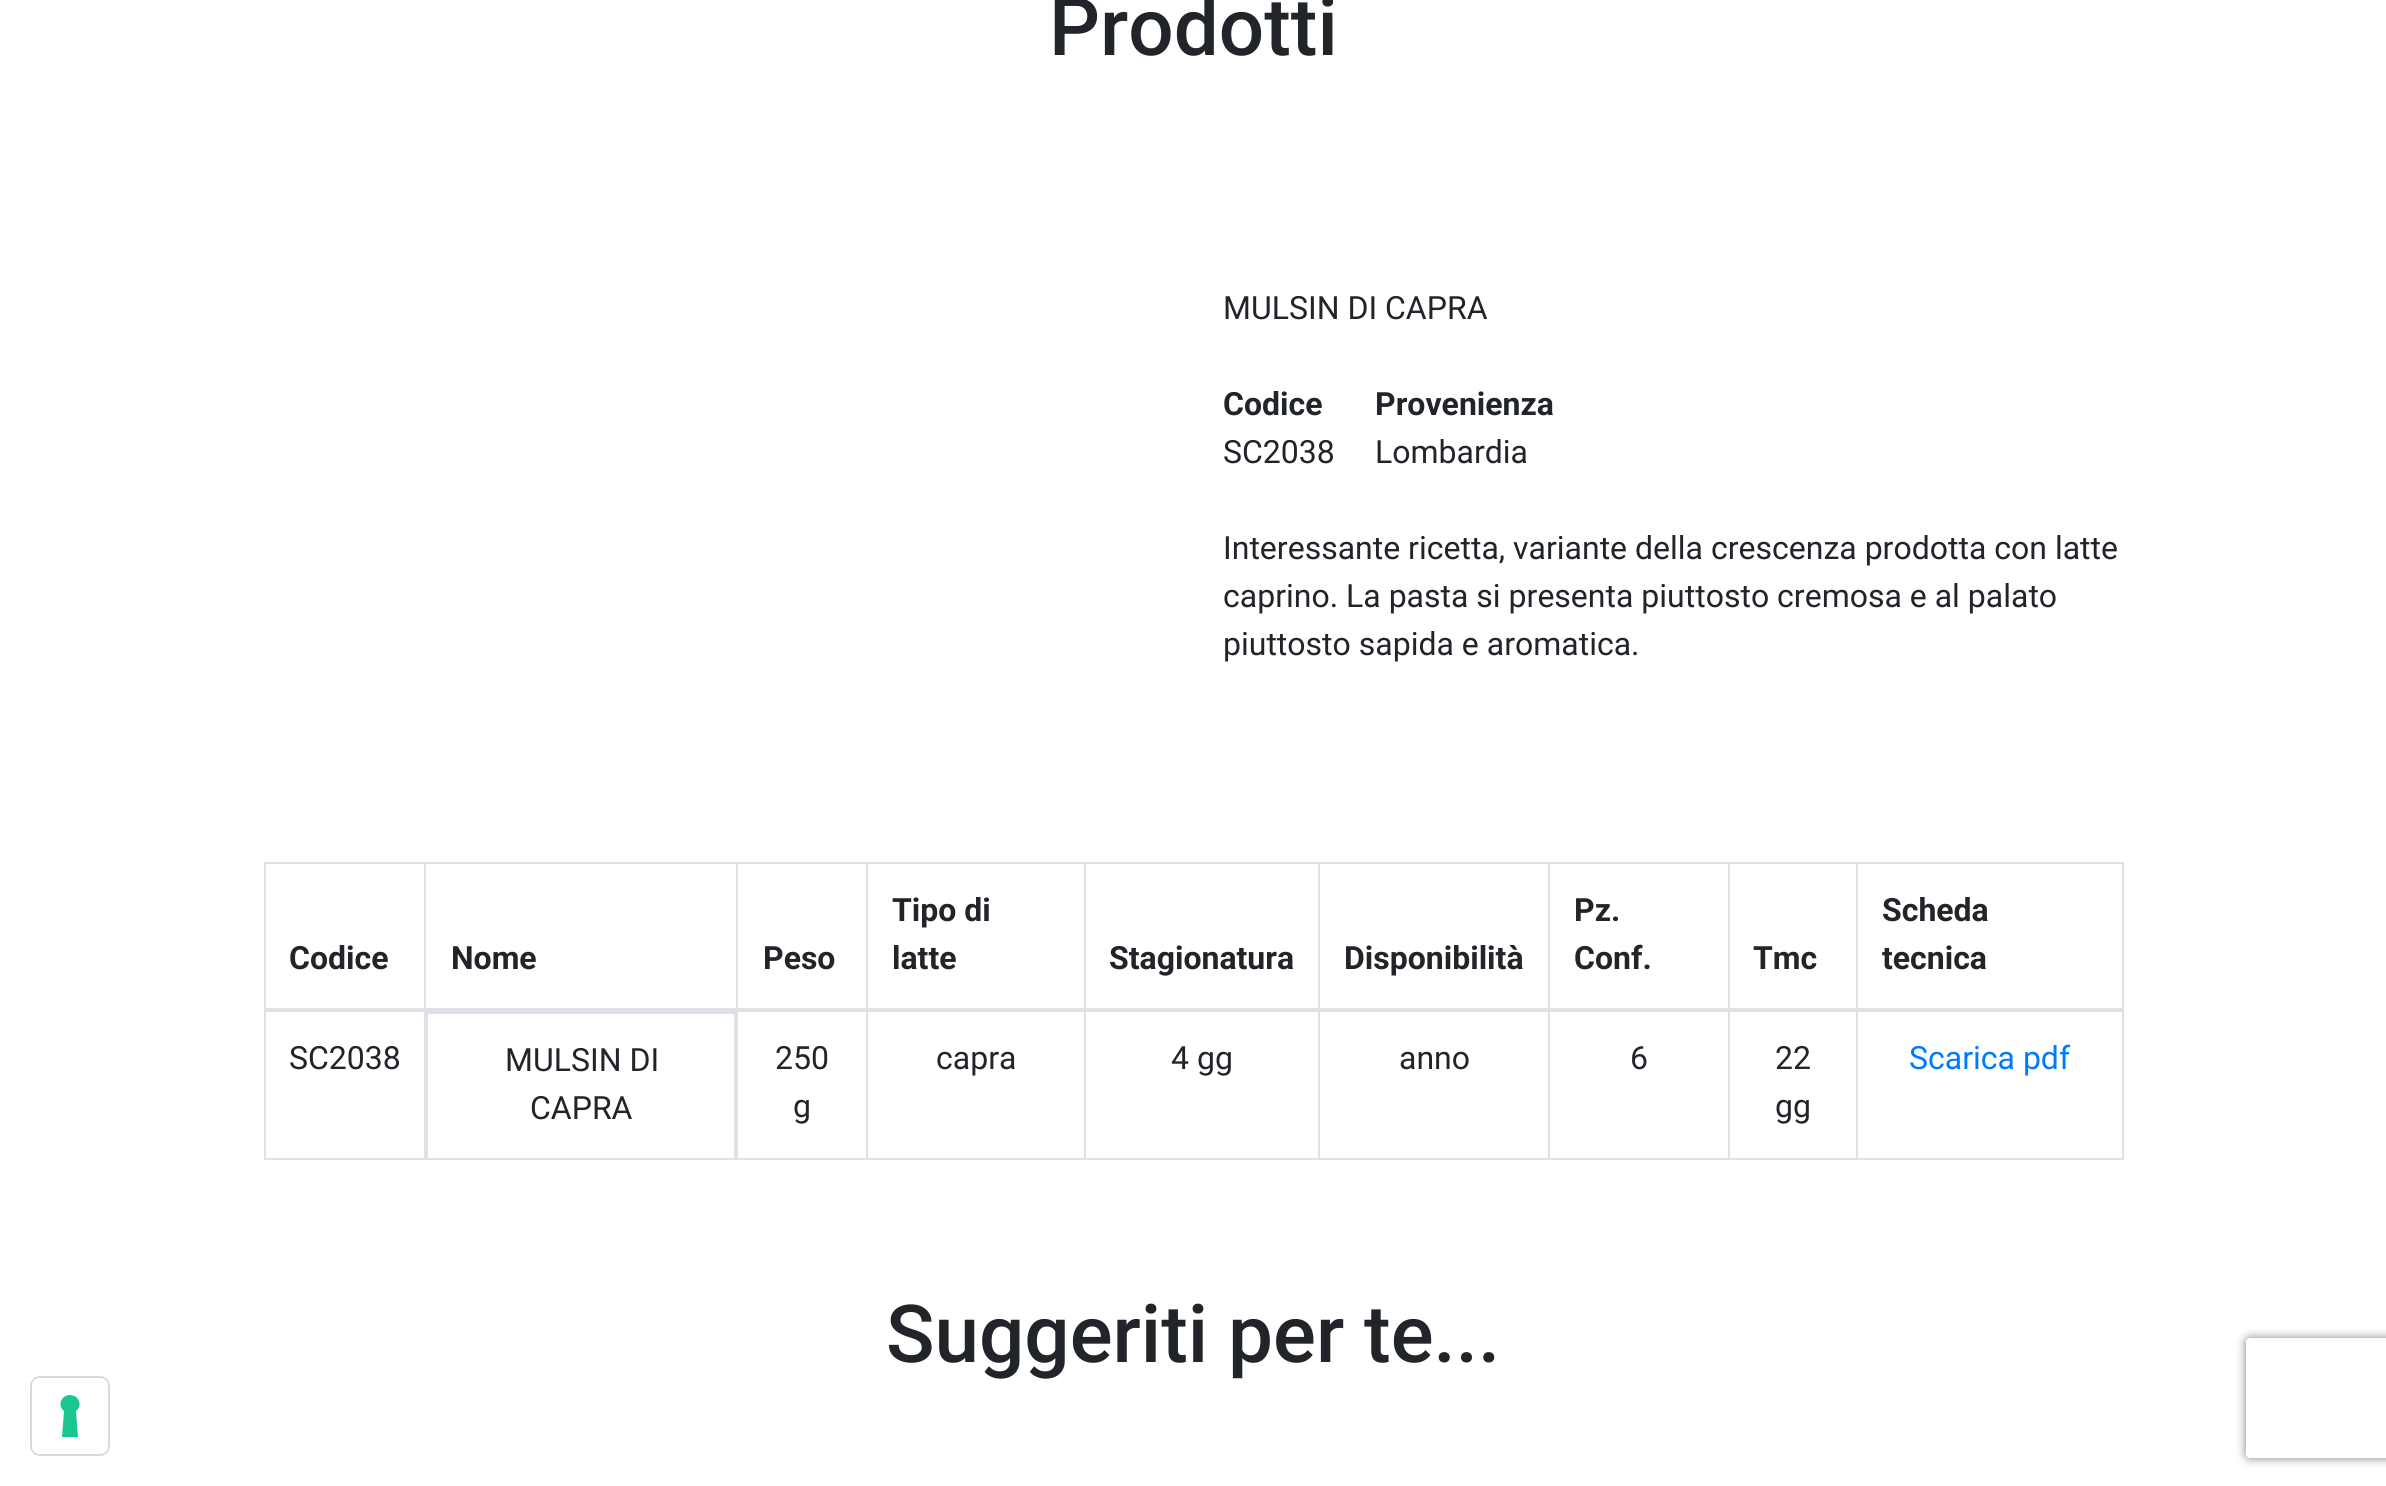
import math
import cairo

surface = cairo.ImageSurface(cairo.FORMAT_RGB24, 2386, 1486)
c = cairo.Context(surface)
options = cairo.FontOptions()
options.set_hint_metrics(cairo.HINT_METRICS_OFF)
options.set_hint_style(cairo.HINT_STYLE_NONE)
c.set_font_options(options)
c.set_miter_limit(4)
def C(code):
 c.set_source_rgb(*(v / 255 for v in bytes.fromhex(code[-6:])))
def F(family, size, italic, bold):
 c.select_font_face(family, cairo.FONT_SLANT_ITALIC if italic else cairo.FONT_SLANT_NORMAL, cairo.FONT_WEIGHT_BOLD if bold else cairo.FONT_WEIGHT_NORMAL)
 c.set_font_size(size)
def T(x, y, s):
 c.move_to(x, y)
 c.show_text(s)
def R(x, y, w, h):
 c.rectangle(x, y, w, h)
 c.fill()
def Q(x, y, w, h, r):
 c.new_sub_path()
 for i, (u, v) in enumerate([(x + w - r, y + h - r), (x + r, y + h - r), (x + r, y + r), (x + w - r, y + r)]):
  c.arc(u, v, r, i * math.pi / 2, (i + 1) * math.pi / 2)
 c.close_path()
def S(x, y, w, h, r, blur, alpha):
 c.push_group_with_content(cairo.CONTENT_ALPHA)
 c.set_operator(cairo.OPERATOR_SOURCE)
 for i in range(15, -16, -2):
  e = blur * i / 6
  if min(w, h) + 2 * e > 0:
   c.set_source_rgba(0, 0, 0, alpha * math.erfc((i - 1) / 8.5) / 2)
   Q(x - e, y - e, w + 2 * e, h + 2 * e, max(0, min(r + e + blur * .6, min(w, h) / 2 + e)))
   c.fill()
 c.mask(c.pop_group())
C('ffffff')
c.paint()
F('Roboto Medium',80,0,0)
C('212529')
T(1049,55,'Prodotti')
F('Roboto',32,0,0)
T(1223,319,'MULSIN DI CAPRA')
F('Roboto',32,0,1)
T(1223,415,'Codice')
F('Roboto',32,0,0)
T(1223,463,'SC2038')
F('Roboto',32,0,1)
T(1375,415,'Provenienza')
F('Roboto',32,0,0)
T(1375,463,'Lombardia')
T(1223,559,'Interessante ricetta, variante della crescenza prodotta con latte')
T(1223,607,'caprino. La pasta si presenta piuttosto cremosa e al palato')
T(1223,655,'piuttosto sapida e aromatica.')
C('dee2e6')
R(1856,862,268,2)
R(2122,1008,2,152)
R(1856,1158,268,2)
R(1856,1008,2,152)
R(1856,862,2,148)
R(1728,862,130,2)
R(1728,1158,130,2)
R(1728,1008,2,152)
R(1728,862,2,148)
R(1548,862,182,2)
R(1548,1158,182,2)
R(1548,1008,2,152)
R(1548,862,2,148)
R(1318,862,232,2)
R(1318,1158,232,2)
R(1318,1008,2,152)
R(1318,862,2,148)
R(1084,862,236,2)
R(1084,1158,236,2)
R(1084,1008,2,152)
R(1084,862,2,148)
R(866,862,220,2)
R(866,1158,220,2)
R(866,1008,2,152)
R(866,862,2,148)
R(736,862,132,2)
R(736,1158,132,2)
R(736,1008,2,152)
R(736,862,2,148)
R(424,862,314,2)
R(424,1008,2,152)
R(424,862,2,148)
R(264,862,162,2)
R(264,1158,162,2)
R(264,1008,2,152)
R(264,862,2,148)
F('Roboto',32,0,1)
C('212529')
T(289,969,'Codice')
T(451,969,'Nome')
T(763,969,'Peso')
T(892,921,'Tipo di')
T(892,969,'latte')
T(1109,969,'Stagionatura')
T(1344,969,'Disponibilità')
T(1574,921,'Pz.')
T(1574,969,'Conf.')
T(1753,969,'Tmc')
C('dee2e6')
R(2122,862,2,148)
R(264,1008,1860,4)
C('212529')
T(1882,921,'Scheda')
T(1882,969,'tecnica')
F('Roboto',32,0,0)
T(289,1069,'SC2038')
c.rectangle(427,1013,308,146)
C('dee2e6')
c.stroke()
C('212529')
T(505,1071,'MULSIN DI')
T(530,1119,'CAPRA')
T(775,1069,'250')
T(793,1117,'g')
T(936,1069,'capra')
T(1171,1069,'4 gg')
T(1399,1069,'anno')
T(1630,1069,'6')
T(1775,1069,'22')
T(1775,1117,'gg')
C('007bff')
T(1909,1069,'Scarica pdf')
Q(31,1377,78,78,9)
C('d9d9d9')
c.stroke()
C('ffffff')
Q(32,1378,76,76,8)
c.fill()
C('1cc691')
c.set_fill_rule(cairo.FILL_RULE_EVEN_ODD)
c.new_path()
c.move_to(70,1395)
c.curve_to(79,1395,83,1406,76,1411)
c.line_to(78,1437)
c.line_to(62,1437)
c.line_to(64,1411)
c.curve_to(57,1406,61,1395,70,1395)
c.close_path()
c.fill()
F('Roboto Medium',80,0,0)
C('212529')
T(886,1362,'Suggeriti per te...')
c.save()
c.new_path()
c.move_to(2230,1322)
c.line_to(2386,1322)
c.line_to(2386,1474)
c.line_to(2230,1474)
c.close_path()
c.move_to(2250,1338)
c.line_to(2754,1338)
c.curve_to(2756,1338,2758,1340,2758,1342)
c.line_to(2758,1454)
c.curve_to(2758,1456,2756,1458,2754,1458)
c.line_to(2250,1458)
c.curve_to(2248,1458,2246,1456,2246,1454)
c.line_to(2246,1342)
c.curve_to(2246,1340,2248,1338,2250,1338)
c.close_path()
c.clip()
C('808080')
S(2246,1338,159,120,4,5,1)
c.restore()
surface.write_to_png('o.png')
